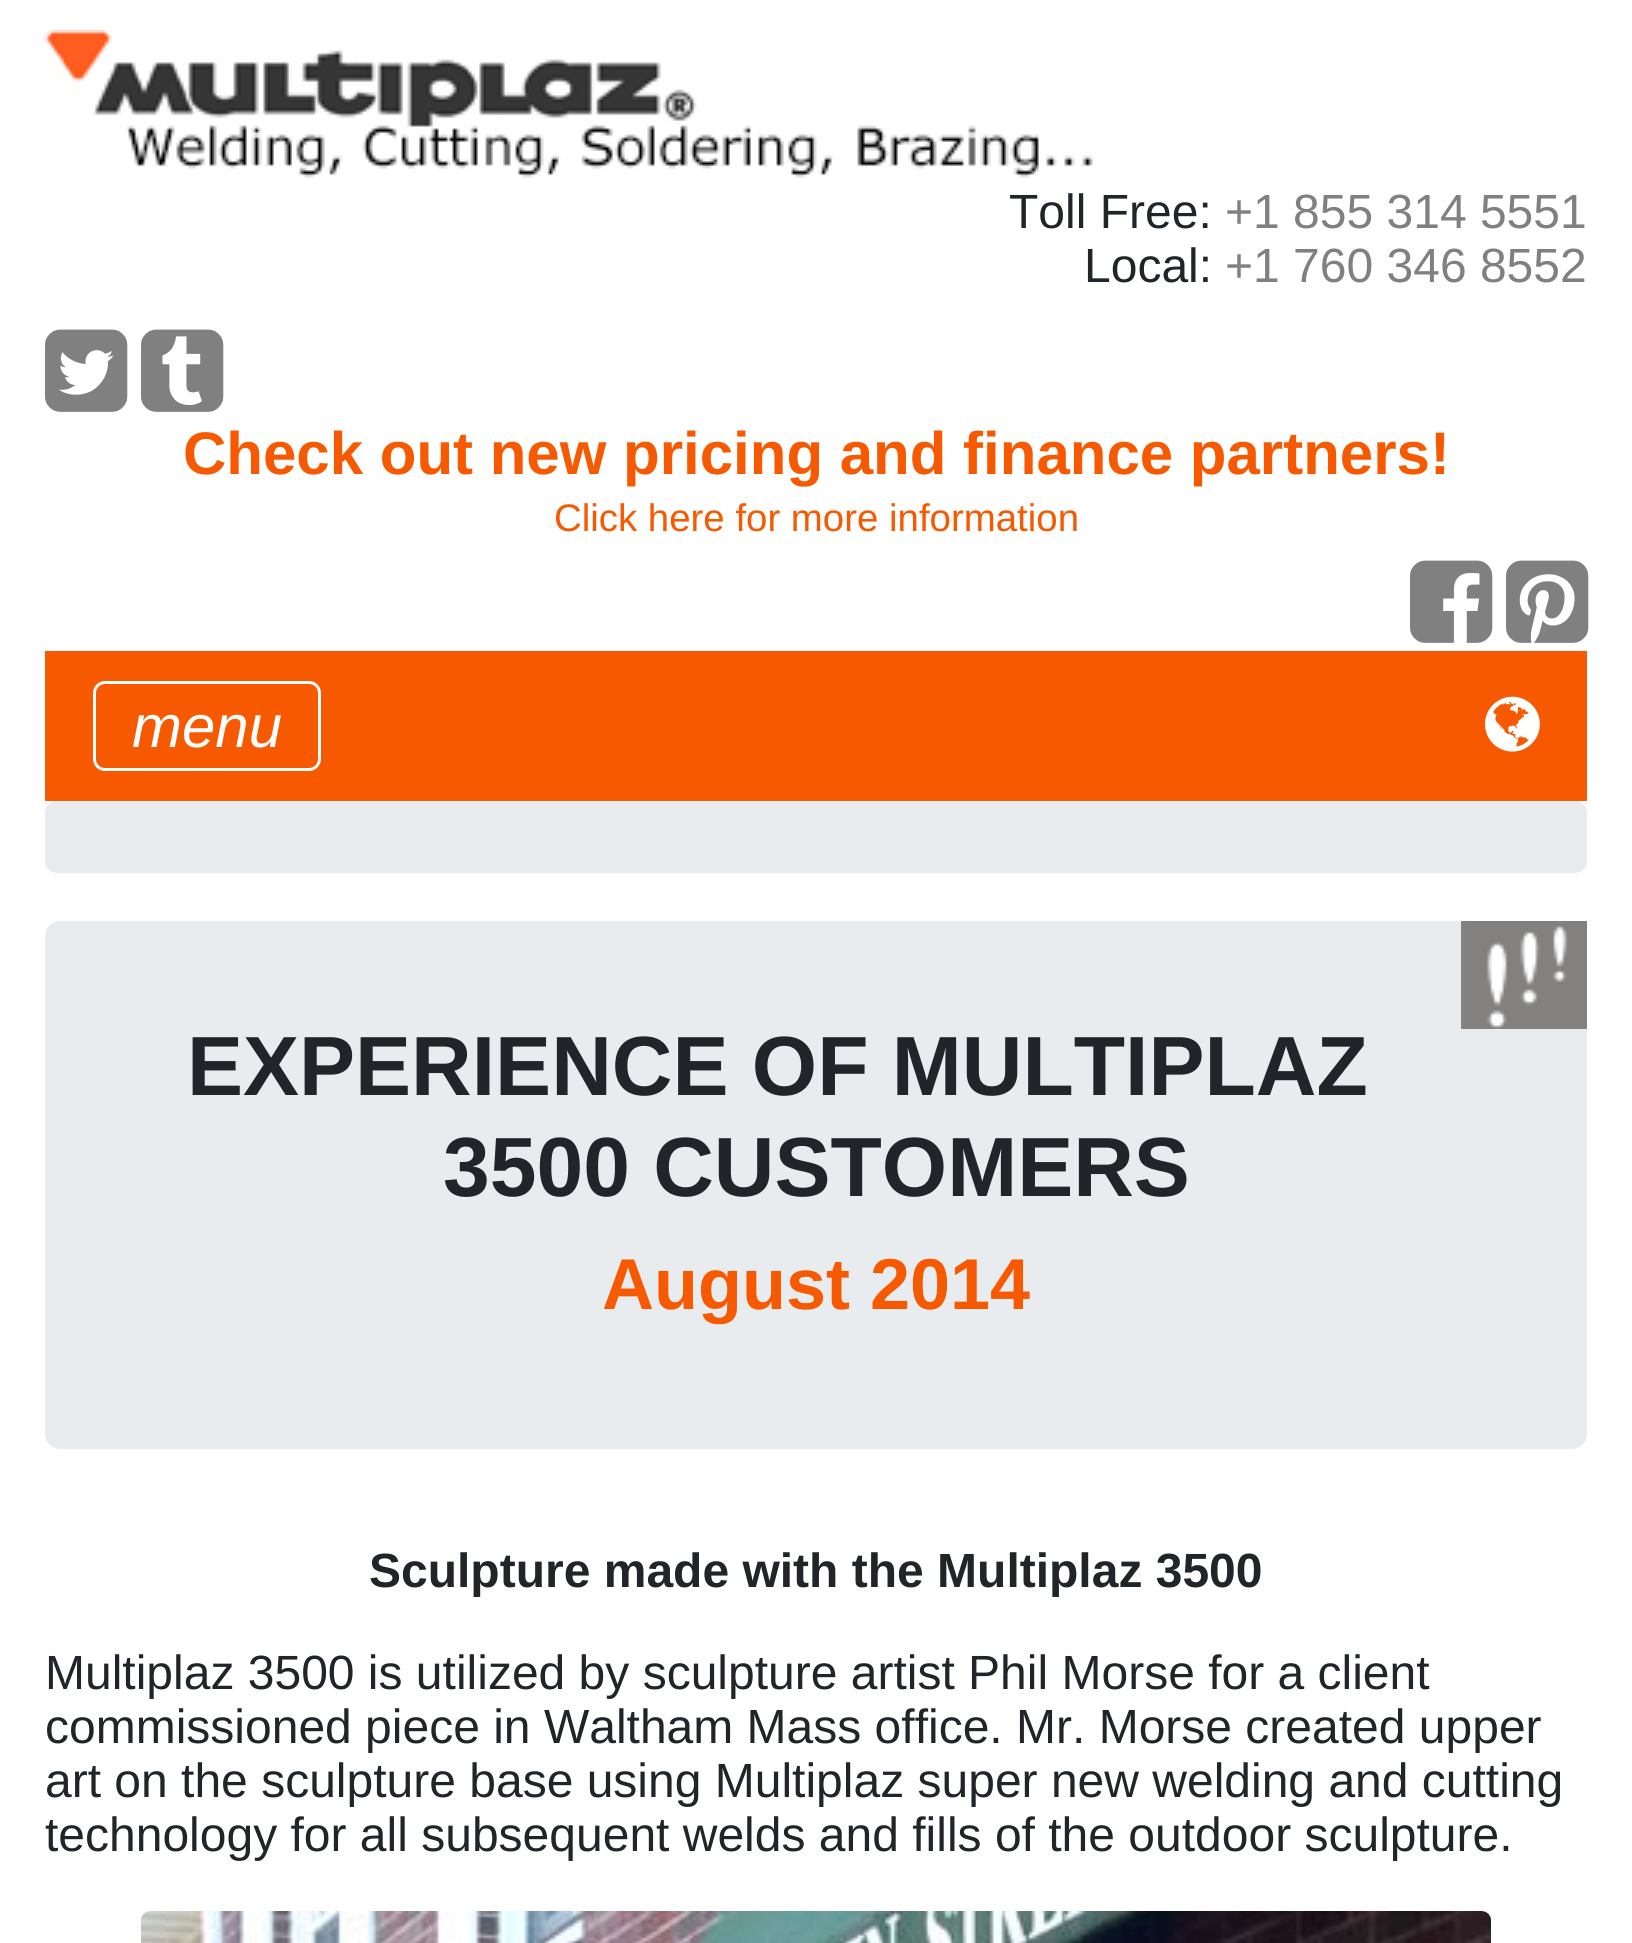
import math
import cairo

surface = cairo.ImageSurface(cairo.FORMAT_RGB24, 1632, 1943)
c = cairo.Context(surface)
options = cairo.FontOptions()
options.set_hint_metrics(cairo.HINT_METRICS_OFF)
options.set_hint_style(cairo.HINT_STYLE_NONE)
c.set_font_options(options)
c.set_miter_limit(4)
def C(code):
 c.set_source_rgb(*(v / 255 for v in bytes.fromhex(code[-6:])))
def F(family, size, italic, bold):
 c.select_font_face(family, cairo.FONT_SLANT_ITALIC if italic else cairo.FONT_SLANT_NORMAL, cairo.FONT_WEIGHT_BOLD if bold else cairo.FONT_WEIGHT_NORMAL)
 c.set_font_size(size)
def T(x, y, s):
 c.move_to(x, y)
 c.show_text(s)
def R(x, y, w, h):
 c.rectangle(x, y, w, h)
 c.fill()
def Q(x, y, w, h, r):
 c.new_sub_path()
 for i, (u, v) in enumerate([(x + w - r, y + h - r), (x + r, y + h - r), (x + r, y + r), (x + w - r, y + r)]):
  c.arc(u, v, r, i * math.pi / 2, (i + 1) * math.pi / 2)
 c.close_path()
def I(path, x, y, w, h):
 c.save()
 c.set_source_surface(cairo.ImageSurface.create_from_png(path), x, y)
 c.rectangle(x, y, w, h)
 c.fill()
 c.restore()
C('ffffff')
c.paint()
I('1.png',45,30,1048,148)
F('Liberation Sans',48,0,0)
C('212529')
T(1009,228,'Toll Free:')
C('808080')
T(1225,228,'+1 855 314 5551')
C('212529')
T(1084,282,'Local:')
C('808080')
T(1225,282,'+1 760 346 8552')
I('2.png',45,329,83,83)
I('3.png',141,329,83,83)
F('Liberation Sans',60,0,1)
C('f75900')
T(183,474,'Check out new pricing and finance partners!')
F('Liberation Sans',38.4,0,0)
T(554,531,'Click here for more information')
I('4.png',1410,560,83,83)
I('5.png',1506,560,83,83)
R(45,651,1542,150)
Q(94.5,682.5,225,87,10.5)
C('ffffff')
c.set_line_width(3)
c.stroke()
F('Liberation Sans',60,1,0)
T(132,747,'menu')
I('6.png',1485,696,55,56)
C('e9ecef')
Q(45,801,1542,72,12)
c.fill()
Q(45,921,1542,528,15)
c.fill()
I('7.png',1461,921,126,108)
F('Liberation Sans',84,0,1)
C('212529')
T(187,1095,'EXPERIENCE OF MULTIPLAZ')
T(443,1196,'3500 CUSTOMERS')
F('Liberation Sans',72,0,1)
C('f75900')
T(602,1309,'August 2014')
F('Liberation Sans',48,0,1)
C('212529')
T(369,1587,'Sculpture made with the Multiplaz 3500')
F('Liberation Sans',48,0,0)
T(45,1689,'Multiplaz 3500 is utilized by sculpture artist Phil Morse for a client')
T(45,1743,'commissioned piece in Waltham Mass office. Mr. Morse created upper')
T(45,1797,'art on the sculpture base using Multiplaz super new welding and cutting')
T(45,1851,'technology for all subsequent welds and fills of the outdoor sculpture.')
I('8.png',141,1911,1350,32)
surface.write_to_png('o.png')
